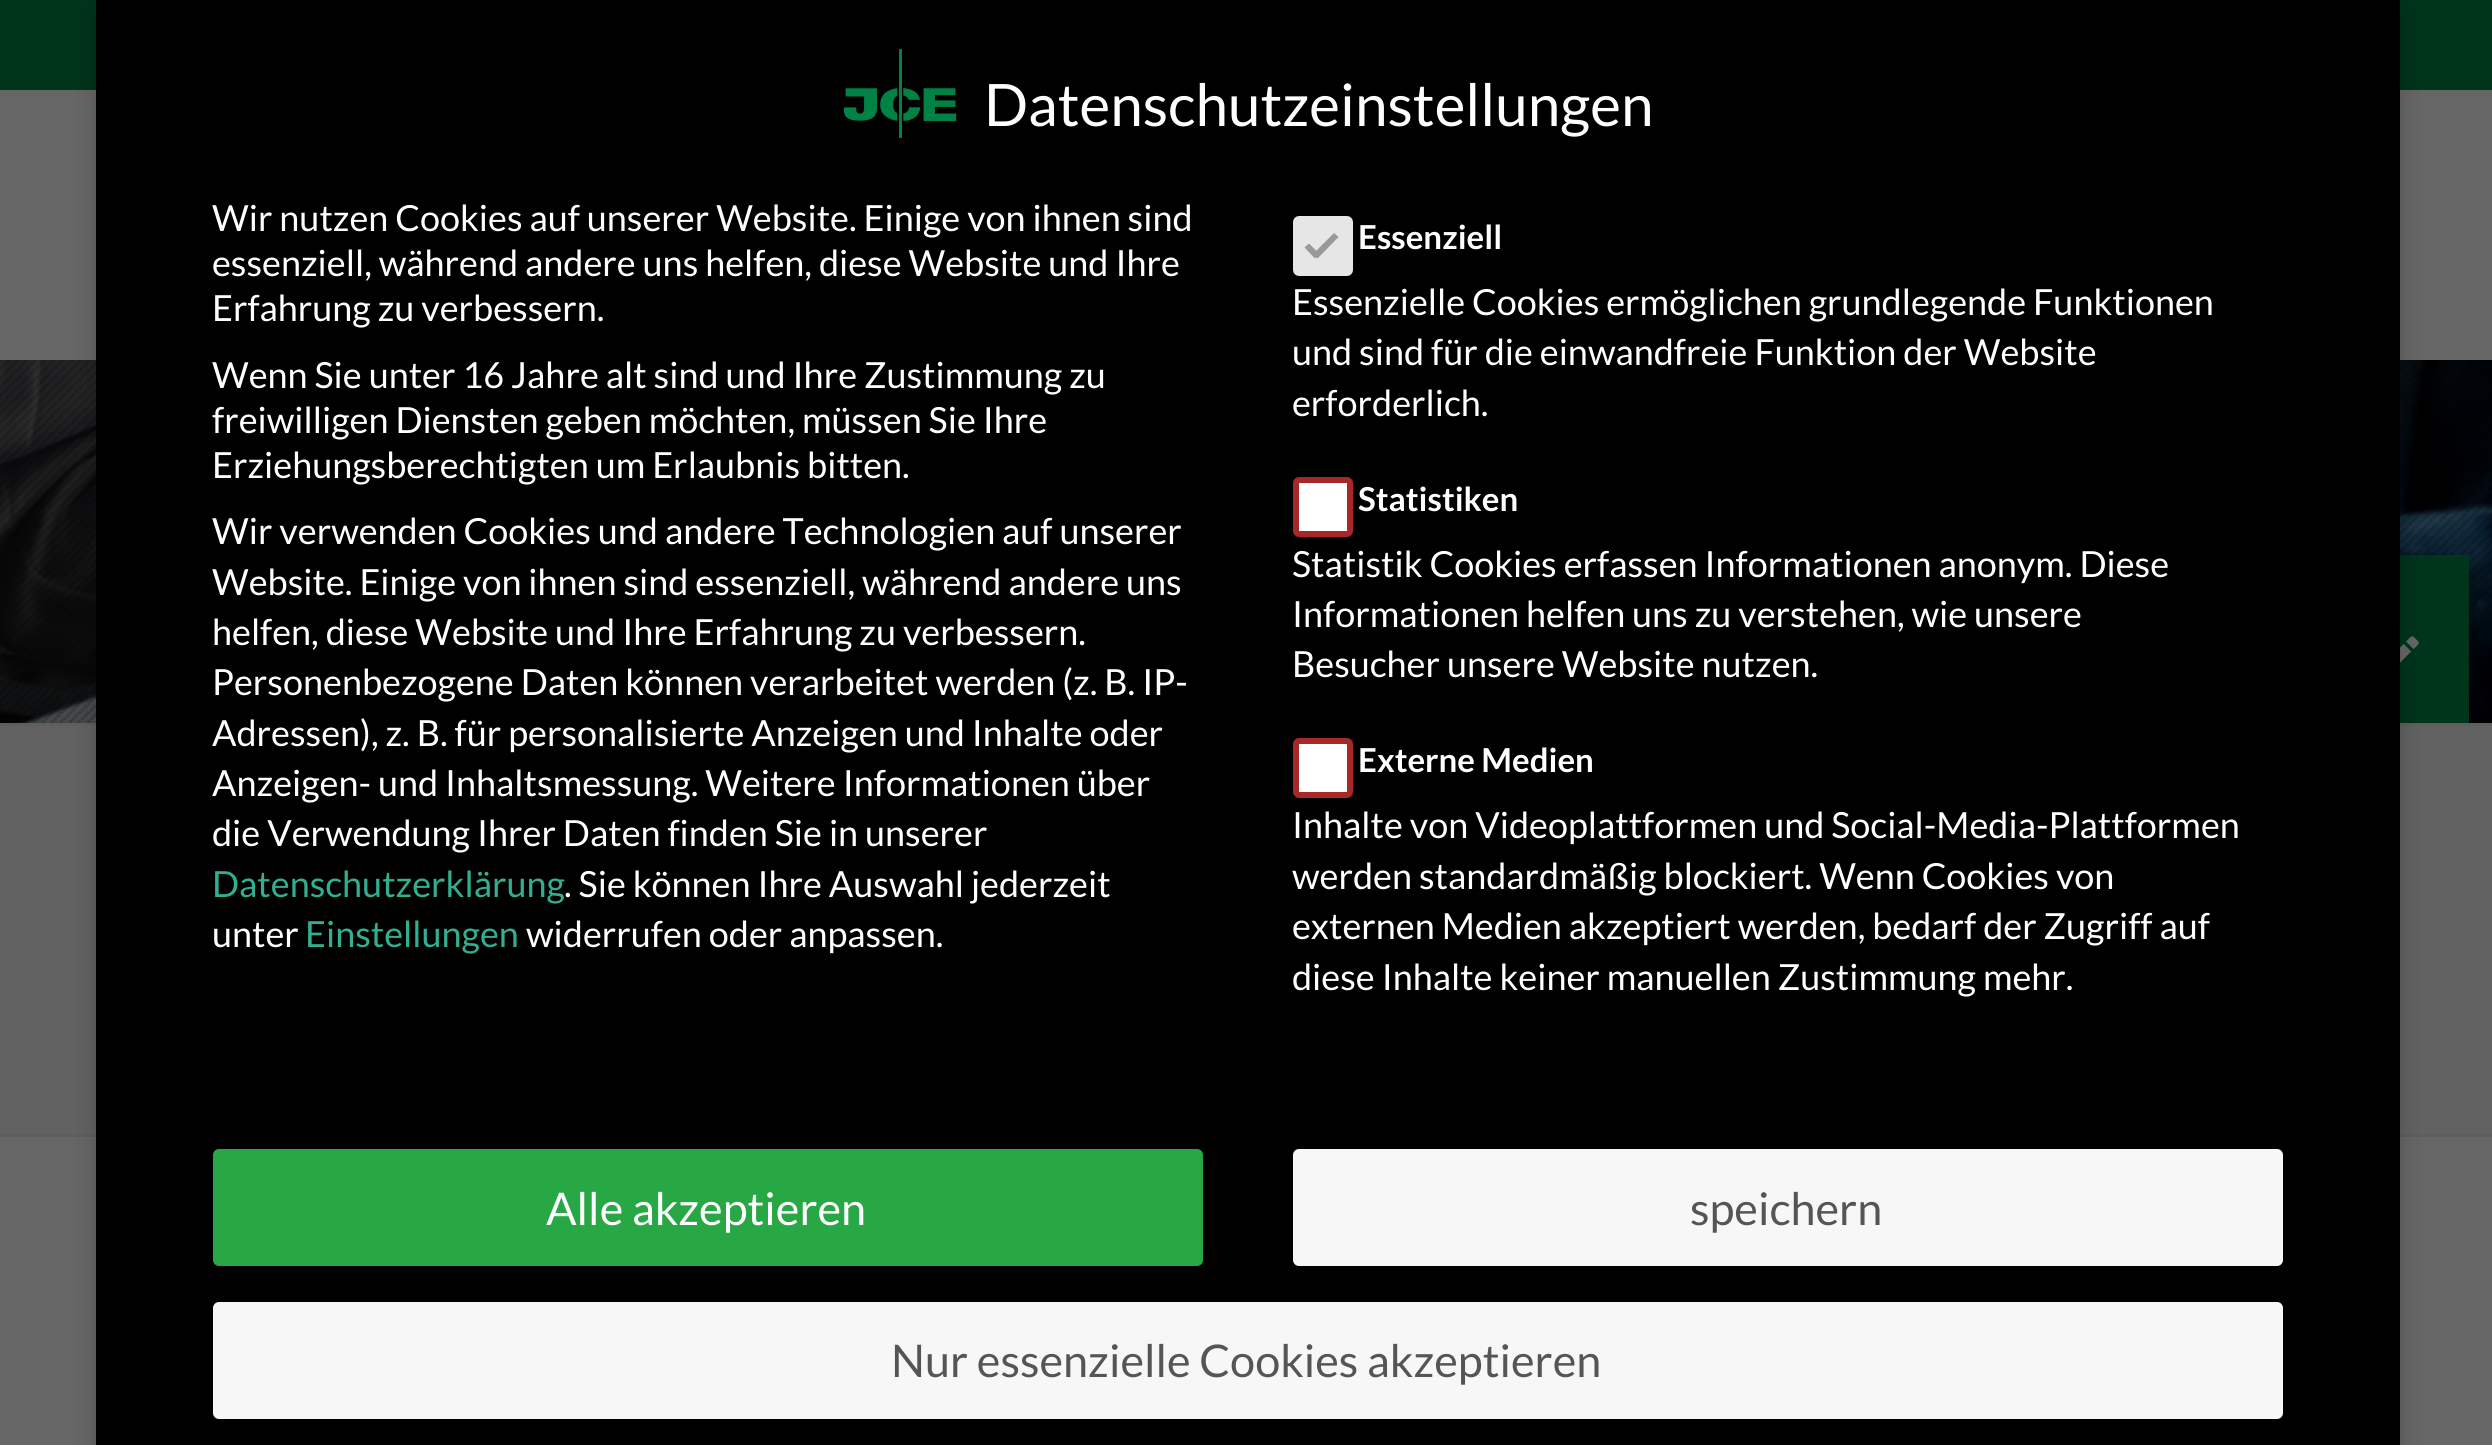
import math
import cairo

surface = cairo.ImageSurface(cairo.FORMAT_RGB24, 2492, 1445)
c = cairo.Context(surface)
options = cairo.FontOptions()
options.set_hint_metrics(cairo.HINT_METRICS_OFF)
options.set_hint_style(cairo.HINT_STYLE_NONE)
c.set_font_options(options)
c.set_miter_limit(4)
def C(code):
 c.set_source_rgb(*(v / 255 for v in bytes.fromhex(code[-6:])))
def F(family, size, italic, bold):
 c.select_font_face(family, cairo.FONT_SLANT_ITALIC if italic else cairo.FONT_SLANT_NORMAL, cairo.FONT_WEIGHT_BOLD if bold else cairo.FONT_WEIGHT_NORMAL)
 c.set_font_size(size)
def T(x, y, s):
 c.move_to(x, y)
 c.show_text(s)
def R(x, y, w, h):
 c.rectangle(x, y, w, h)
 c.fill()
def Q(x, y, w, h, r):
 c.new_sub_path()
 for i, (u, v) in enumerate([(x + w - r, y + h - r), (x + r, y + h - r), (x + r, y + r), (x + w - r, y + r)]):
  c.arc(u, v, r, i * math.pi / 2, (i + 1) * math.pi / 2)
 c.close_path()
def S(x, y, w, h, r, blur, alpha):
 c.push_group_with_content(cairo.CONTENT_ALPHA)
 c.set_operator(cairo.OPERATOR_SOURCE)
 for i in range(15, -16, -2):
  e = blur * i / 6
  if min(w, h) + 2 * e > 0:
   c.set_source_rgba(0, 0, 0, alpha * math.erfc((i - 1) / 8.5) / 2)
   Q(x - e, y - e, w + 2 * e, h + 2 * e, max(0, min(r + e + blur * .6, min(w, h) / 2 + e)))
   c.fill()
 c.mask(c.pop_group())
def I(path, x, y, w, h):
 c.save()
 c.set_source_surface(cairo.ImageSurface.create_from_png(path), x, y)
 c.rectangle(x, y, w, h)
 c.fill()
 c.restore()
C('666666')
c.paint()
C('00341b')
R(0,0,2492,90)
I('2.png',0,360,2492,363)
I('3.png',0,360,2492,363)
C('626262')
R(0,726,2492,408)
C('5e5e5e')
R(0,723,2492,3)
R(0,1134,2492,3)
C('00341b')
R(2400,555,69,168)
I('4.png',2400,636,19,27)
C('000000')
S(96,12,2304,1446,0,12,.2)
C('000000')
R(96,0,2304,1445)
I('1.png',843,49,114,89)
F('Lato',58.5,0,0)
C('ffffff')
T(984,126,'Datenschutzeinstellungen')
F('Lato',36,0,0)
T(212,231,'Wir nutzen Cookies auf unserer Website. Einige von ihnen sind')
T(212,276,'essenziell, während andere uns helfen, diese Website und Ihre')
T(212,321,'Erfahrung zu verbessern.')
T(212,388,'Wenn Sie unter 16 Jahre alt sind und Ihre Zustimmung zu')
T(212,433,'freiwilligen Diensten geben möchten, müssen Sie Ihre')
T(212,478,'Erziehungsberechtigten um Erlaubnis bitten.')
T(212,544,'Wir verwenden Cookies und andere Technologien auf unserer')
T(212,595,'Website. Einige von ihnen sind essenziell, während andere uns')
T(212,645,'helfen, diese Website und Ihre Erfahrung zu verbessern.')
T(212,695,'Personenbezogene Daten können verarbeitet werden (z. B. IP-')
T(212,746,'Adressen), z. B. für personalisierte Anzeigen und Inhalte oder')
T(212,796,'Anzeigen- und Inhaltsmessung. Weitere Informationen über')
T(212,846,'die Verwendung Ihrer Daten finden Sie in unserer')
C('31af91')
T(212,897,'Datenschutzerklärung')
C('ffffff')
T(564,897,'. Sie können Ihre Auswahl jederzeit')
T(212,947,'unter')
C('31af91')
T(305,947,'Einstellungen')
C('ffffff')
T(526,947,'widerrufen oder anpassen.')
C('e6e6e6')
Q(1296,219,54,54,3)
c.fill_preserve()
c.set_line_width(6)
c.stroke()
C('999999')
c.new_path()
c.move_to(1334,233)
c.line_to(1338.5,237)
c.line_to(1317.5,258.5)
c.line_to(1313,254)
c.close_path()
c.fill()
c.new_path()
c.move_to(1309,243.5)
c.line_to(1319.5,254)
c.line_to(1315,258.5)
c.line_to(1304.5,247.5)
c.close_path()
c.fill()
F('Lato',33,0,1)
C('ffffff')
T(1358,249,'Essenziell')
F('Lato',36,0,0)
T(1292,315,'Essenzielle Cookies ermöglichen grundlegende Funktionen')
T(1292,365,'und sind für die einwandfreie Funktion der Website')
T(1292,416,'erforderlich.')
Q(1296,480,54,54,3)
c.fill_preserve()
C('a72828')
c.stroke()
F('Lato',33,0,1)
C('ffffff')
T(1358,511,'Statistiken')
F('Lato',36,0,0)
T(1292,577,'Statistik Cookies erfassen Informationen anonym. Diese')
T(1292,627,'Informationen helfen uns zu verstehen, wie unsere')
T(1292,677,'Besucher unsere Website nutzen.')
Q(1296,741,54,54,3)
c.fill_preserve()
C('a72828')
c.stroke()
F('Lato',33,0,1)
C('ffffff')
T(1358,772,'Externe Medien')
F('Lato',36,0,0)
T(1292,838,'Inhalte von Videoplattformen und Social-Media-Plattformen')
T(1292,889,'werden standardmäßig blockiert. Wenn Cookies von')
T(1292,939,'externen Medien akzeptiert werden, bedarf der Zugriff auf')
T(1292,990,'diese Inhalte keiner manuellen Zustimmung mehr.')
C('28a745')
Q(213,1149,990,117,6)
c.fill()
F('Lato',45,0,0)
C('ffffff')
T(546,1225,'Alle akzeptieren')
C('f7f7f7')
Q(1293,1149,990,117,6)
c.fill()
C('555555')
T(1690,1225,'speichern')
C('f7f7f7')
Q(213,1302,2070,117,6)
c.fill()
C('555555')
T(891,1377,'Nur essenzielle Cookies akzeptieren')
surface.write_to_png('o.png')
